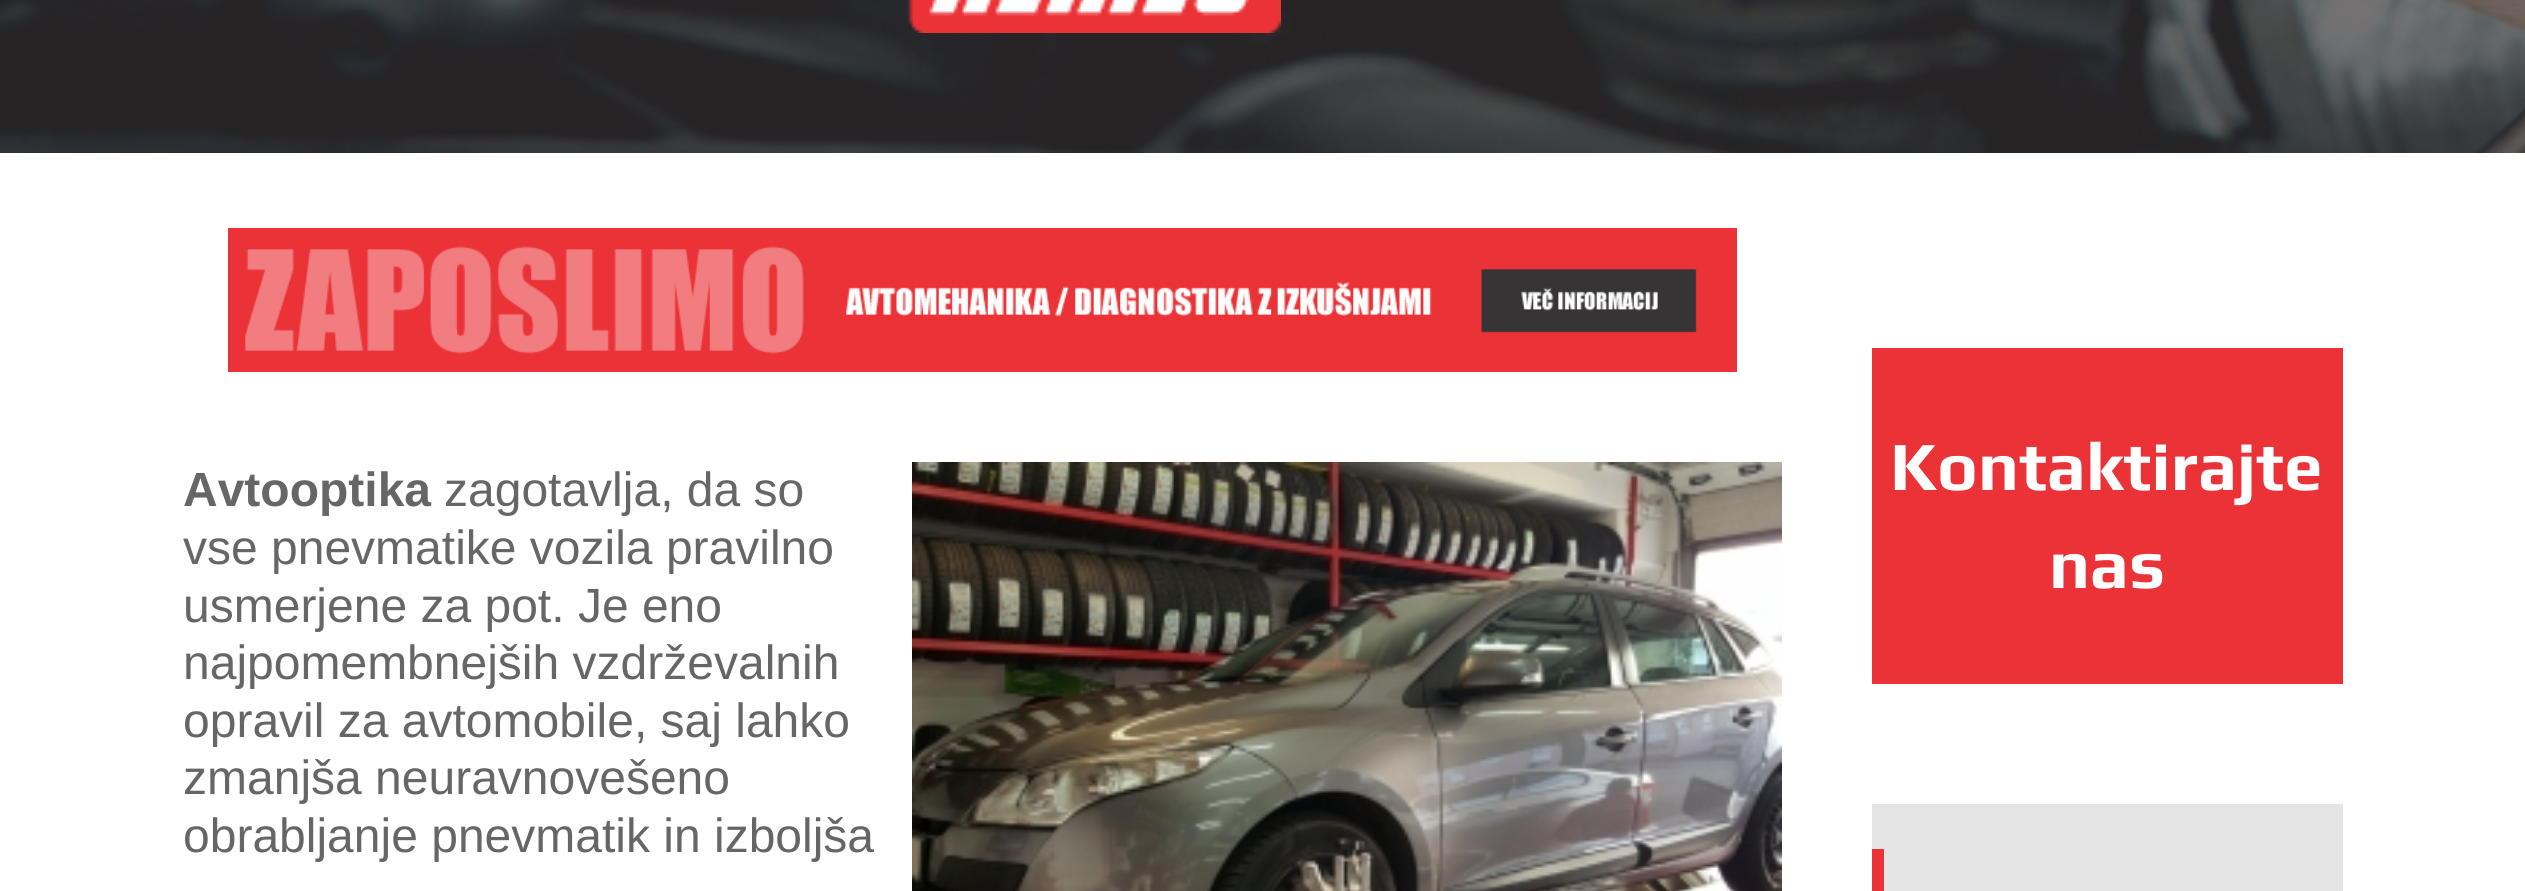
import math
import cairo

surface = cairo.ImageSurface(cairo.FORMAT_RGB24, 2525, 891)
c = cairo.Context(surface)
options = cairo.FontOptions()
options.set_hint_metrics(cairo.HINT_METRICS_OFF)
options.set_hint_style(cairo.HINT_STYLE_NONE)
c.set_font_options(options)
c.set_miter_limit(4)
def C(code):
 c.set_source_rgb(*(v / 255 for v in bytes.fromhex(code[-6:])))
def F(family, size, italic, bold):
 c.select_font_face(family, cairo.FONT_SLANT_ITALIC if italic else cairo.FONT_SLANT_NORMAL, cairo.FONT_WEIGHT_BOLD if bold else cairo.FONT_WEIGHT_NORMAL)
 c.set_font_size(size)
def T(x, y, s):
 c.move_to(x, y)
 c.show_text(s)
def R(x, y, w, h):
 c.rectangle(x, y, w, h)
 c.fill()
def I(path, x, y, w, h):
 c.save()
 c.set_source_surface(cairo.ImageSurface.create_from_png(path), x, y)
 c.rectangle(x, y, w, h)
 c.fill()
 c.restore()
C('ffffff')
c.paint()
I('1.png',0,0,2525,153)
I('2.png',908,0,373,33)
I('3.png',228,228,1509,144)
F('Liberation Sans',48,0,1)
C('666666')
T(183,506,'Avtooptika')
F('Liberation Sans',48,0,0)
T(444,506,'zagotavlja, da so')
T(183,564,'vse pnevmatike vozila pravilno')
T(183,622,'usmerjene za pot. Je eno')
T(183,679,'najpomembnejših vzdrževalnih')
T(183,737,'opravil za avtomobile, saj lahko')
T(183,794,'zmanjša neuravnovešeno')
T(183,852,'obrabljanje pnevmatik in izboljša')
I('4.png',912,462,870,429)
C('ea3237')
R(1872,348,471,336)
F('Play',69,0,1)
C('ffffff')
T(1890,490,'Kontaktirajte')
T(2049,588,'nas')
C('e5e5e5')
R(1872,804,471,87)
C('ea3237')
R(1872,849,12,42)
surface.write_to_png('o.png')
